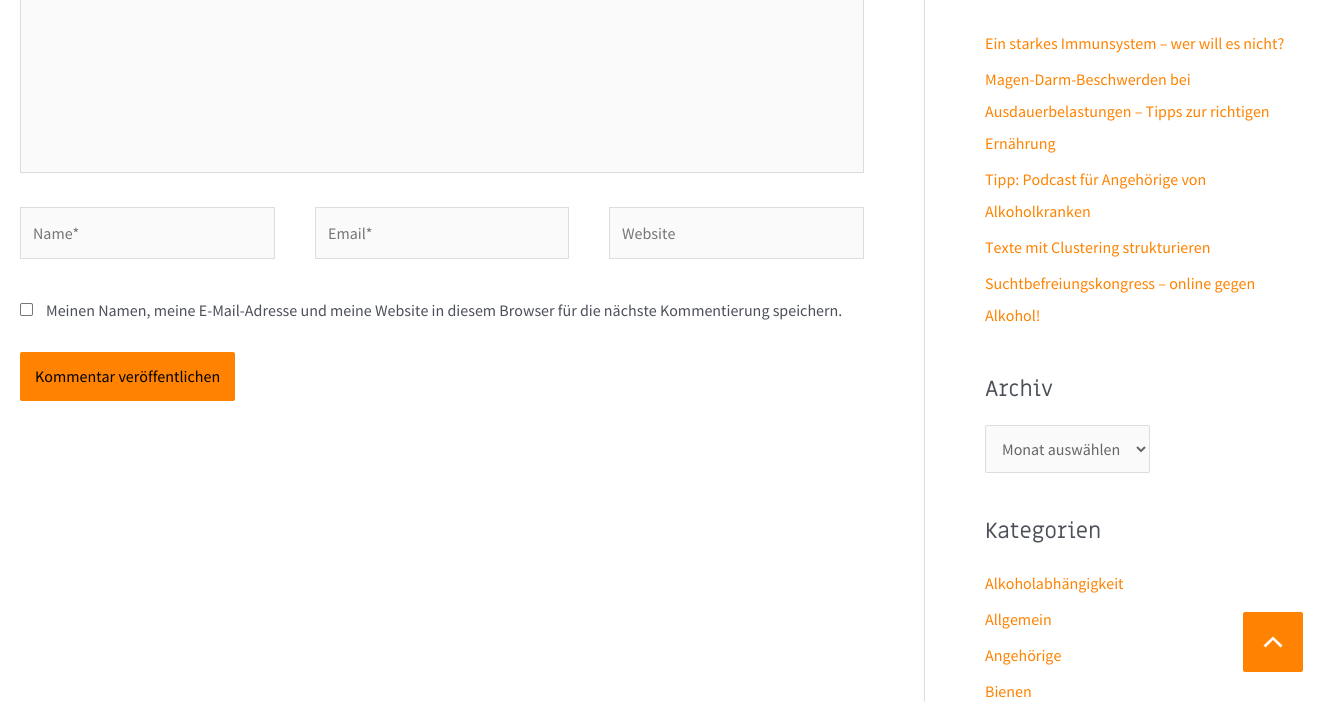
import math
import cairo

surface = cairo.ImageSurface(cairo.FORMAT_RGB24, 1333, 702)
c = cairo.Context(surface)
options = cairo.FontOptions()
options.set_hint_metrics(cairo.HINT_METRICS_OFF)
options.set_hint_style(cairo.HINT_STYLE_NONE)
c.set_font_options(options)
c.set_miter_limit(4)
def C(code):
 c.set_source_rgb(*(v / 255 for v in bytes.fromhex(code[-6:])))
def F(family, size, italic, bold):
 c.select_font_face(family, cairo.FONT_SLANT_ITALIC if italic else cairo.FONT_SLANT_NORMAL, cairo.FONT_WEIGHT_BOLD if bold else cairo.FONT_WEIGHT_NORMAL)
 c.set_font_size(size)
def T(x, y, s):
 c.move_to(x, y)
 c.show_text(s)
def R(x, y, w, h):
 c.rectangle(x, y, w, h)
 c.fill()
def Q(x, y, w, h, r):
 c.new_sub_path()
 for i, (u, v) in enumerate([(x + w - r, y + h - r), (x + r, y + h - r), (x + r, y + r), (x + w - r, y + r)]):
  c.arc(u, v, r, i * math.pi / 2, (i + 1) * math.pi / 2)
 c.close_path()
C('ffffff')
c.paint()
C('dddddd')
R(924,0,1,702)
C('fafafa')
c.rectangle(20.5,-.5,843,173)
c.fill_preserve()
C('dddddd')
c.set_line_width(1)
c.stroke()
C('fafafa')
c.rectangle(20.5,207.5,254,51)
c.fill_preserve()
C('dddddd')
c.stroke()
F('Source Sans Pro',16,0,0)
C('757575')
T(33,239,'Name*')
C('fafafa')
c.rectangle(315.5,207.5,253,51)
c.fill_preserve()
C('dddddd')
c.stroke()
C('757575')
T(328,239,'Email*')
C('fafafa')
c.rectangle(609.5,207.5,254,51)
c.fill_preserve()
C('dddddd')
c.stroke()
C('757575')
T(622,239,'Website')
Q(20.5,303.5,12,12,1.5)
C('767676')
c.stroke()
C('4b4f58')
T(46,316,'Meinen Namen, meine E-Mail-Adresse und meine Website in diesem Browser für die nächste Kommentierung speichern.')
C('ff8200')
Q(20,352,215,49,2)
c.fill()
C('000000')
T(35,382,'Kommentar veröffentlichen')
C('ff8200')
T(985,49,'Ein starkes Immunsystem – wer will es nicht?')
T(985,85,'Magen-Darm-Beschwerden bei')
T(985,117,'Ausdauerbelastungen – Tipps zur richtigen')
T(985,149,'Ernährung')
T(985,185,'Tipp: Podcast für Angehörige von')
T(985,217,'Alkoholkranken')
T(985,253,'Texte mit Clustering strukturieren')
T(985,289,'Suchtbefreiungskongress – online gegen')
T(985,321,'Alkohol!')
F('Miriam Libre',22,0,0)
C('4b4f58')
T(985,396,'Archiv')
C('fafafa')
Q(985.5,425.5,164,47,1.5)
c.fill_preserve()
C('dddddd')
c.stroke()
c.new_path()
c.move_to(1137,447)
c.line_to(1141,451)
c.line_to(1145,447)
C('666666')
c.set_line_width(2)
c.stroke()
F('Source Sans Pro',16,0,0)
T(1002,455,'Monat auswählen')
F('Miriam Libre',22,0,0)
C('4b4f58')
T(985,538,'Kategorien')
F('Source Sans Pro',16,0,0)
C('ff8200')
T(985,589,'Alkoholabhängigkeit')
T(985,625,'Allgemein')
T(985,661,'Angehörige')
T(985,697,'Bienen')
Q(1243,612,60,60,2)
c.fill()
C('ffffff')
c.new_path()
c.move_to(1282.5,645.5)
c.line_to(1273,636.5)
c.line_to(1263.5,645.5)
c.line_to(1265.5,647.5)
c.line_to(1273,640)
c.line_to(1280.5,647.5)
c.close_path()
c.fill()
surface.write_to_png('o.png')
